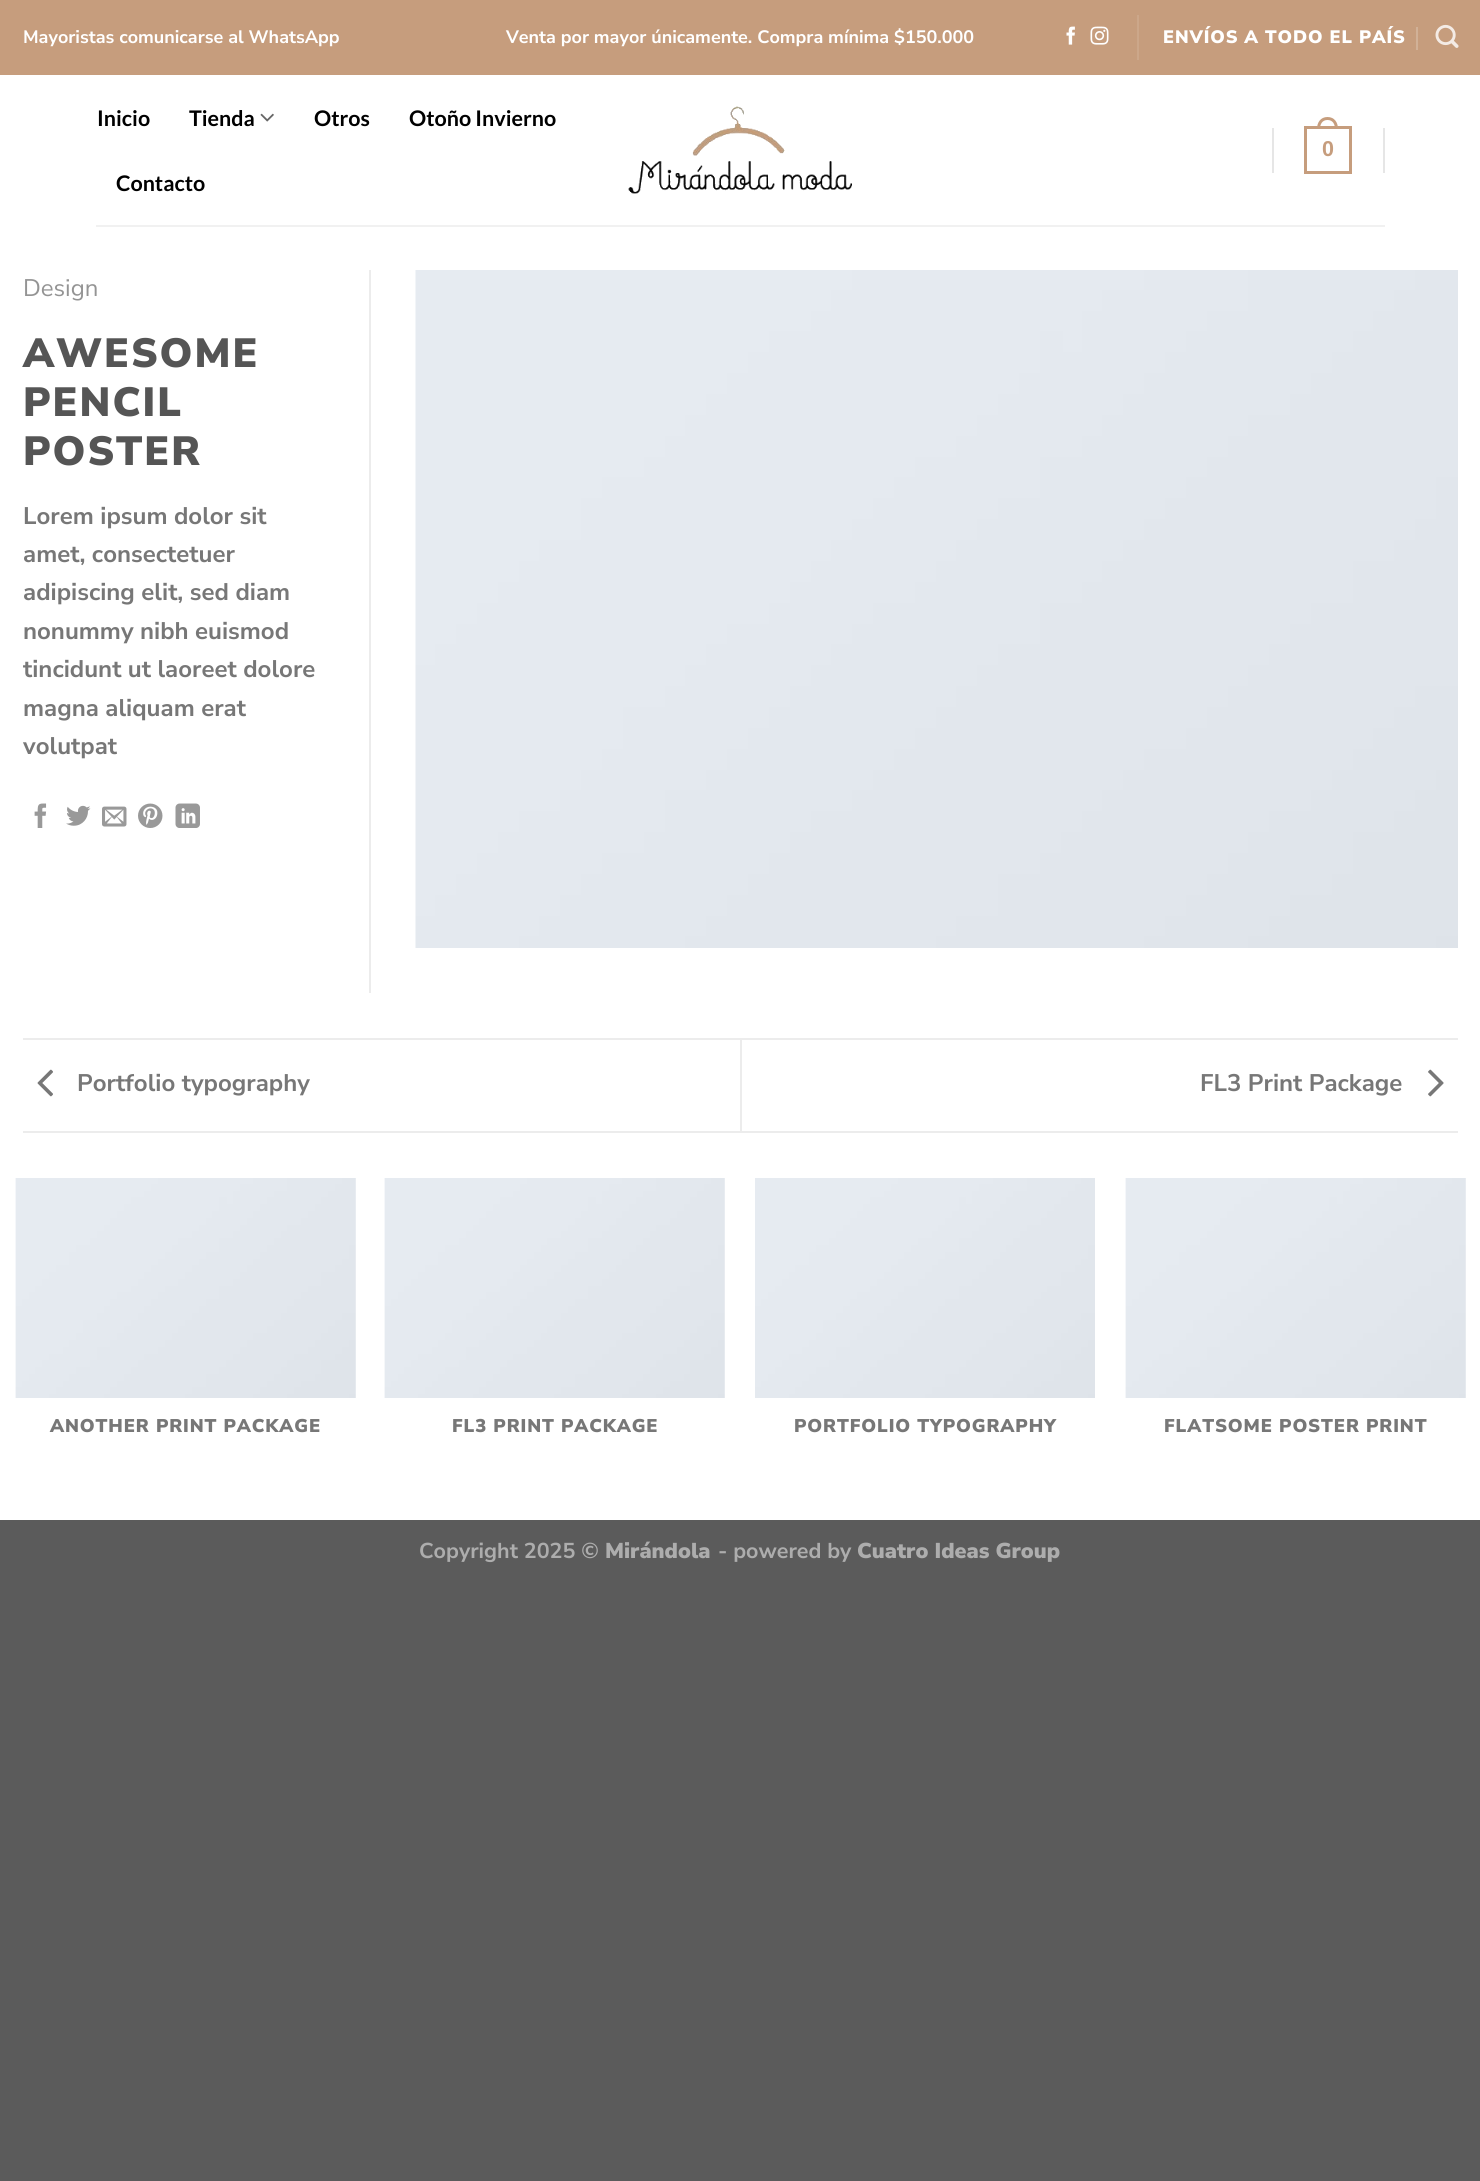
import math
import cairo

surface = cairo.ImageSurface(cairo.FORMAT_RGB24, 1480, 2181)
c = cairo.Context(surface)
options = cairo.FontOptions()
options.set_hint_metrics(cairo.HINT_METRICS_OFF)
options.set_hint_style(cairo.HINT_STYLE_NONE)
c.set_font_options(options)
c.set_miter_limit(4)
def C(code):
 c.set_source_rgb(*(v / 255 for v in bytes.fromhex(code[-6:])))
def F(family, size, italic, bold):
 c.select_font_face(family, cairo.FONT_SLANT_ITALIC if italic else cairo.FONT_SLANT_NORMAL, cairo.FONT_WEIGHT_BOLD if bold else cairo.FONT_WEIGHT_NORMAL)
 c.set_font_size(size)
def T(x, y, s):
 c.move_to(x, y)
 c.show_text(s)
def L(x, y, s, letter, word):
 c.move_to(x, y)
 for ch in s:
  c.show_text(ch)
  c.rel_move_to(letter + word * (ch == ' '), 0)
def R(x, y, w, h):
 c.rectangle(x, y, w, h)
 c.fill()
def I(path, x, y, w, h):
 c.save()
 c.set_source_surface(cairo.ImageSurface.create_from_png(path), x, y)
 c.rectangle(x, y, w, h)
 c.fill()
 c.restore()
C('5b5b5b')
c.paint()
C('ffffff')
R(0,75,1480,1445)
C('c69d7d')
R(0,0,1480,75)
F('Nunito Sans',18,0,1)
C('ffffff')
T(23,43,'Mayoristas comunicarse al WhatsApp')
T(506,43,'Venta por mayor únicamente. Compra mínima $150.000')
I('1.png',1066,26,9,19)
I('2.png',1090,26,19,19)
C('cca78a')
R(1137,15,2,45)
F('Nunito Sans Black',18,0,0)
C('ffffff')
L(1163,43,'ENVÍOS A TODO EL PAÍS',.9,0)
C('d1b197')
R(1416,27,2,23)
I('3.png',1435,24,24,24)
F('Lato',21.5,0,1)
C('000000')
T(97,126,'Inicio')
T(189,126,'Tienda')
I('4.png',260,113,14,9)
T(314,126,'Otros')
T(409,126,'Otoño Invierno')
T(116,191,'Contacto')
I('5.png',628,106,224,88)
C('e6e6e6')
R(1272,128,2,45)
c.rectangle(1305.5,127.5,45,45)
C('c69d7d')
c.set_line_width(3)
c.stroke()
c.set_fill_rule(cairo.FILL_RULE_EVEN_ODD)
c.new_path()
c.move_to(1327.5,117)
c.curve_to(1334.5,117,1338,122.5,1338,129)
c.line_to(1317,129)
c.curve_to(1317,122.5,1320.5,117,1327.5,117)
c.close_path()
c.move_to(1327.5,120)
c.curve_to(1333,120,1335,124.5,1335,129)
c.line_to(1320,129)
c.curve_to(1320,124.5,1322,120,1327.5,120)
c.close_path()
c.fill()
F('Liberation Sans',21.5,0,1)
T(1322,156,'0')
C('e6e6e6')
R(1383,128,2,45)
C('f1f1f1')
R(96,225,1289,2)
C('ececec')
R(369,270,2,723)
F('Nunito Sans',24,0,0)
C('949494')
T(23,296,'Design')
F('Nunito Sans Black',40.75,0,0)
C('555555')
L(23,367,'AWESOME',2,0)
L(23,416,'PENCIL',2,0)
L(23,465,'POSTER',2,0)
F('Nunito Sans',24,0,1)
C('777777')
T(23,524,'Lorem ipsum dolor sit')
T(23,562,'amet, consectetuer')
T(23,600,'adipiscing elit, sed diam')
T(23,639,'nonummy nibh euismod')
T(23,677,'tincidunt ut laoreet dolore')
T(23,716,'magna aliquam erat')
T(23,754,'volutpat')
I('6.png',34,803,13,25)
I('7.png',66,805,25,21)
I('8.png',102,806,25,21)
I('9.png',138,803,25,25)
I('10.png',175,803,25,25)
I('11.png',415,270,1043,678)
C('ececec')
R(23,1038,1435,2)
R(23,1131,1435,2)
I('12.png',37,1069,16,28)
C('777777')
T(77,1091,'Portfolio typography')
C('ececec')
R(740,1040,2,91)
C('777777')
T(1200,1091,'FL3 Print Package')
I('13.png',1428,1069,16,28)
I('14.png',15,1178,341,220)
F('Nunito Sans Black',18.4,0,0)
L(50,1432,'ANOTHER PRINT PACKAGE',.9,0)
I('14.png',384,1178,341,220)
L(452,1432,'FL3 PRINT PACKAGE',.9,0)
I('15.png',755,1178,340,220)
L(794,1432,'PORTFOLIO TYPOGRAPHY',.9,0)
I('14.png',1125,1178,341,220)
L(1164,1432,'FLATSOME POSTER PRINT',.9,0)
F('Nunito Sans',21.5,0,1)
C('adadad')
T(419,1558,'Copyright 2025 ©')
F('Nunito Sans Black',21.5,0,0)
T(605,1558,'Mirándola')
F('Nunito Sans',21.5,0,1)
T(718,1558,'- powered by')
F('Nunito Sans Black',21.5,0,0)
T(857,1558,'Cuatro Ideas Group')
surface.write_to_png('o.png')
